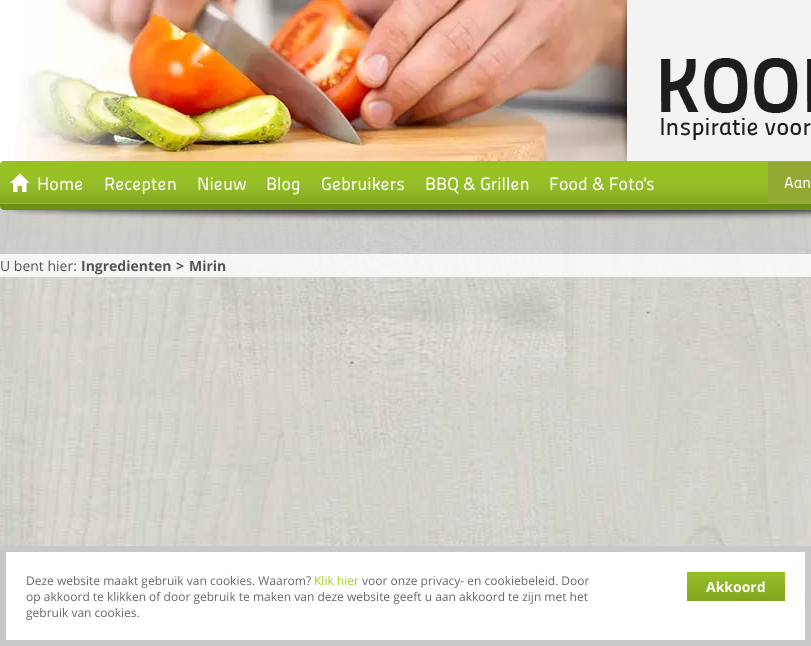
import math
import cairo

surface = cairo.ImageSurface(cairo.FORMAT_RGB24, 811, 646)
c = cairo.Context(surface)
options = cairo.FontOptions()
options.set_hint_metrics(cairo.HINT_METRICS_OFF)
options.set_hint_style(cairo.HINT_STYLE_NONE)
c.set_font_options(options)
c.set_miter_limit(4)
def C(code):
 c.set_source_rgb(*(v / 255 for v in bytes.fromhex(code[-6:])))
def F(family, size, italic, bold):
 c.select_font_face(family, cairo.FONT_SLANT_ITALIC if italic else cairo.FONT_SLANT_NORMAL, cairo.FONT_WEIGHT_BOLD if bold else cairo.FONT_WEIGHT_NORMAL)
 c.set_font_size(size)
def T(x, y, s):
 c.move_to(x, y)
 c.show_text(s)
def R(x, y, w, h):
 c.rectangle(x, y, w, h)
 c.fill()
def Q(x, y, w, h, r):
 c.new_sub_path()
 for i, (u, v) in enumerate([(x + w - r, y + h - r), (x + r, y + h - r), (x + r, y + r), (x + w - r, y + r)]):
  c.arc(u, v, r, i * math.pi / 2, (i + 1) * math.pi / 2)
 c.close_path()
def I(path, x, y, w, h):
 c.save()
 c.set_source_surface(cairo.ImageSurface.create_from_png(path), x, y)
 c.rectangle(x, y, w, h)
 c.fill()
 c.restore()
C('ffffff')
c.paint()
I('1.png',0,210,811,336)
I('2.png',14,0,613,161)
I('3.png',619,0,8,161)
C('f3f3f3')
R(627,0,184,161)
I('4.png',661,58,150,82)
I('5.png',0,161,811,49)
I('6.png',10,173,20,19)
F('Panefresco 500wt',18,0,0)
C('ffffff')
T(37,190,'Home')
T(104,190,'Recepten')
T(197,190,'Nieuw')
T(266,190,'Blog')
T(321,190,'Gebruikers')
T(425,190,'BBQ & Grillen')
T(549,190,'Food & Foto\'s')
C('92aa33')
R(768,162,43,42)
F('Panefresco 500wt',16,0,0)
C('ffffff')
T(784,188,'Aan')
c.set_source_rgba(0.784,0.784,0.784,0.6)
R(0,210,811,44)
I('7.png',3,210,808,11)
c.set_source_rgba(1,1,1,0.8)
R(0,254,811,23)
F('Open Sans',14,0,0)
C('545454')
T(0,271,'U bent hier:')
C('f5f5f5')
Q(81,254,145,23,4)
c.fill()
F('Open Sans',14,0,1)
C('545454')
T(81,271,'Ingredienten')
T(176,271,'>')
T(189,271,'Mirin')
c.rectangle(3,549,805,94)
C('c8c8c8')
c.set_line_width(6)
c.stroke()
F('Open Sans',12,0,0)
C('656565')
T(26,585,'Deze website maakt gebruik van cookies. Waarom?')
C('9fd018')
T(314,585,'Klik hier')
C('656565')
T(362,585,'voor onze privacy- en cookiebeleid. Door')
T(26,601,'op akkoord te klikken of door gebruik te maken van deze website geeft u aan akkoord te zijn met het')
T(26,617,'gebruik van cookies.')
gradient = cairo.LinearGradient(736,572,736,601)
gradient.add_color_stop_rgba(0,0.592,0.753,0.153,1)
gradient.add_color_stop_rgba(1,0.51,0.647,0.133,1)
c.set_source(gradient)
R(687,572,98,29)
F('Open Sans',14,0,1)
C('ffffff')
T(706,592,'Akkoord')
surface.write_to_png('o.png')
